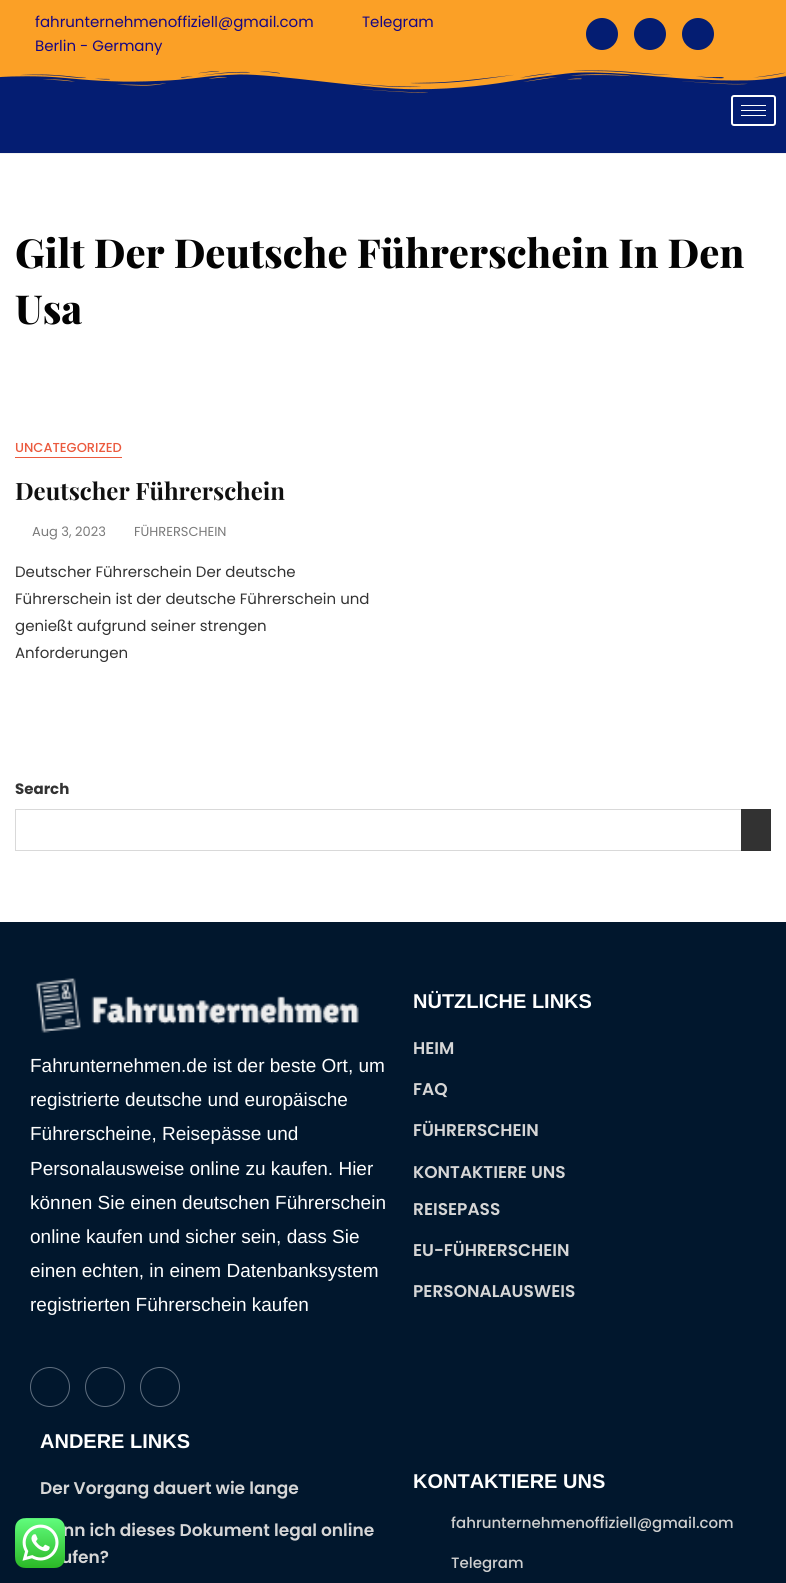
import math
import cairo

surface = cairo.ImageSurface(cairo.FORMAT_RGB24, 786, 1583)
c = cairo.Context(surface)
options = cairo.FontOptions()
options.set_hint_metrics(cairo.HINT_METRICS_OFF)
options.set_hint_style(cairo.HINT_STYLE_NONE)
c.set_font_options(options)
c.set_miter_limit(4)
def C(code):
 c.set_source_rgb(*(v / 255 for v in bytes.fromhex(code[-6:])))
def F(family, size, italic, bold):
 c.select_font_face(family, cairo.FONT_SLANT_ITALIC if italic else cairo.FONT_SLANT_NORMAL, cairo.FONT_WEIGHT_BOLD if bold else cairo.FONT_WEIGHT_NORMAL)
 c.set_font_size(size)
def T(x, y, s):
 c.move_to(x, y)
 c.show_text(s)
def R(x, y, w, h):
 c.rectangle(x, y, w, h)
 c.fill()
def Q(x, y, w, h, r):
 c.new_sub_path()
 for i, (u, v) in enumerate([(x + w - r, y + h - r), (x + r, y + h - r), (x + r, y + r), (x + w - r, y + r)]):
  c.arc(u, v, r, i * math.pi / 2, (i + 1) * math.pi / 2)
 c.close_path()
def I(path, x, y, w, h):
 c.save()
 c.set_source_surface(cairo.ImageSurface.create_from_png(path), x, y)
 c.rectangle(x, y, w, h)
 c.fill()
 c.restore()
C('ffffff')
c.paint()
C('fba026')
R(0,0,786,68)
F('Poppins',15,0,0)
C('170683')
T(35,27,'fahrunternehmenoffiziell@gmail.com')
T(362,27,'Telegram')
T(35,51,'Berlin - Germany')
C('041d72')
c.new_path()
c.arc(602,34,16,0,2 * math.pi)
c.fill()
c.arc(650,34,16,0,2 * math.pi)
c.fill()
c.arc(698,34,16,0,2 * math.pi)
c.fill()
R(0,70,786,83)
I('1.png',0,68,786,25)
Q(732,96,43,29,2)
C('ffffff')
c.stroke()
R(741,105,25,1)
R(741,110,25,1)
R(741,115,25,1)
C('f2f2f2')
R(0,153,786,1)
F('Playfair Display ExtraBold',40,0,0)
C('030303')
T(15,268,'Gilt Der Deutsche Führerschein In Den')
T(15,324,'Usa')
F('Poppins Medium',13,0,0)
C('eb5a3e')
T(15,452,'UNCATEGORIZED')
R(15,457,107,1)
F('Playfair Display',24,0,1)
C('101010')
T(15,500,'Deutscher Führerschein')
F('Poppins',13,0,0)
C('7a7a7a')
T(32,536,'Aug 3, 2023')
T(134,536,'FÜHRERSCHEIN')
F('Poppins',15,0,0)
C('333333')
T(15,577,'Deutscher Führerschein Der deutsche')
T(15,604,'Führerschein ist der deutsche Führerschein und')
T(15,631,'genießt aufgrund seiner strengen')
T(15,658,'Anforderungen')
F('Poppins',15,0,1)
T(15,794,'Search')
c.rectangle(15.5,809.5,755,41)
C('d9d9d9')
c.set_line_width(1)
c.stroke()
C('323232')
R(741,809,30,42)
C('01172d')
R(0,922,786,661)
I('2.png',36,978,323,55)
F('Liberation Sans',19,0,0)
C('ffffff')
T(30,1072,'Fahrunternehmen.de ist der beste Ort, um')
T(30,1106,'registrierte deutsche und europäische')
T(30,1140,'Führerscheine, Reisepässe und')
T(30,1175,'Personalausweise online zu kaufen. Hier')
T(30,1209,'können Sie einen deutschen Führerschein')
T(30,1243,'online kaufen und sicher sein, dass Sie')
T(30,1277,'einen echten, in einem Datenbanksystem')
T(30,1311,'registrierten Führerschein kaufen')
c.new_path()
c.arc(50,1387,19.5,0,2 * math.pi)
C('5e6d7e')
c.stroke()
c.arc(105,1387,19.5,0,2 * math.pi)
c.stroke()
c.arc(160,1387,19.5,0,2 * math.pi)
c.stroke()
F('Liberation Sans',20,0,1)
C('ffffff')
T(413,1008,'NÜTZLICHE LINKS')
F('Poppins SemiBold',17,0,0)
C('d6d6d6')
T(413,1054,'HEIM')
T(413,1095,'FAQ')
T(413,1136,'FÜHRERSCHEIN')
T(413,1178,'KONTAKTIERE UNS')
T(413,1215,'REISEPASS')
T(413,1256,'EU-FÜHRERSCHEIN')
T(413,1297,'PERSONALAUSWEIS')
F('Liberation Sans',20,0,1)
C('ffffff')
T(40,1448,'ANDERE LINKS')
F('Poppins SemiBold',17,0,0)
C('d6d6d6')
T(40,1494,'Der Vorgang dauert wie lange')
T(63,1536,'nn ich dieses Dokument legal online')
T(61,1563,'ufen?')
F('Liberation Sans',20,0,1)
C('ffffff')
T(413,1488,'KONTAKTIERE UNS')
F('Poppins Medium',15,0,0)
C('cfcfcf')
T(451,1528,'fahrunternehmenoffiziell@gmail.com')
T(451,1568,'Telegram')
I('3.png',15,1518,50,50)
surface.write_to_png('o.png')
